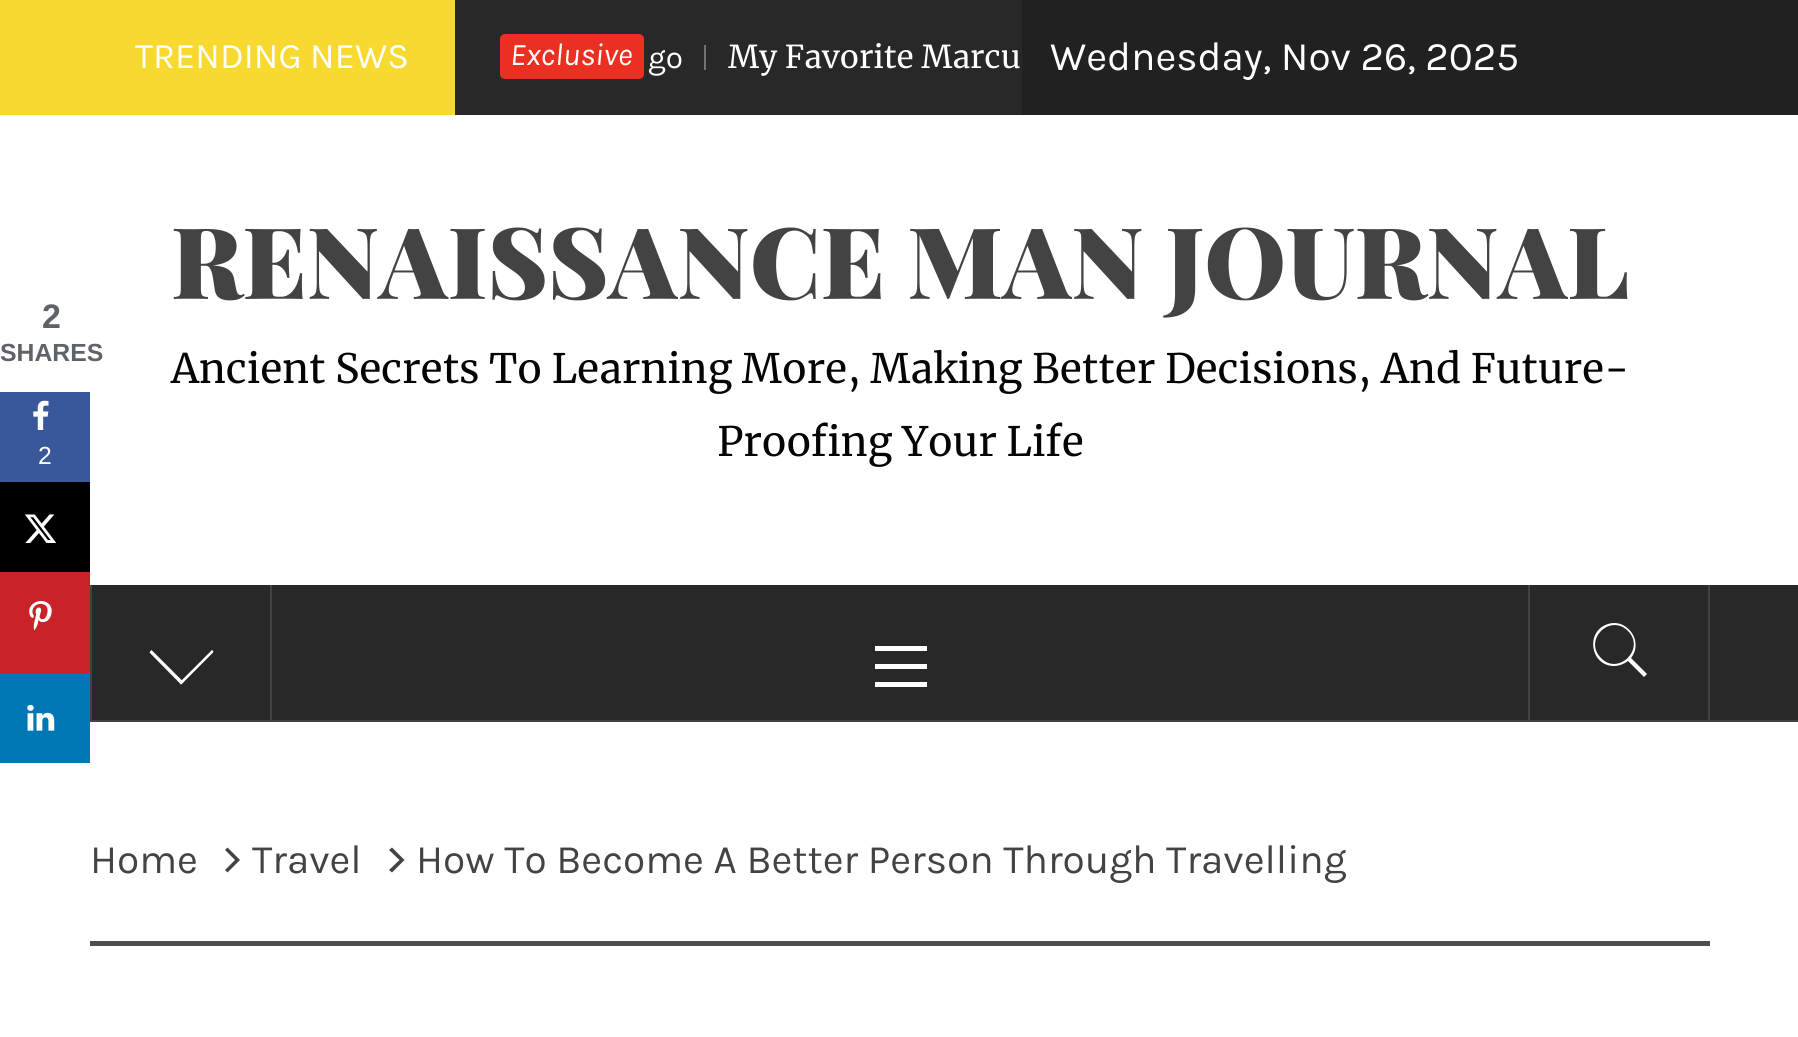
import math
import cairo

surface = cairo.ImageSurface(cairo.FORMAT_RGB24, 1798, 1037)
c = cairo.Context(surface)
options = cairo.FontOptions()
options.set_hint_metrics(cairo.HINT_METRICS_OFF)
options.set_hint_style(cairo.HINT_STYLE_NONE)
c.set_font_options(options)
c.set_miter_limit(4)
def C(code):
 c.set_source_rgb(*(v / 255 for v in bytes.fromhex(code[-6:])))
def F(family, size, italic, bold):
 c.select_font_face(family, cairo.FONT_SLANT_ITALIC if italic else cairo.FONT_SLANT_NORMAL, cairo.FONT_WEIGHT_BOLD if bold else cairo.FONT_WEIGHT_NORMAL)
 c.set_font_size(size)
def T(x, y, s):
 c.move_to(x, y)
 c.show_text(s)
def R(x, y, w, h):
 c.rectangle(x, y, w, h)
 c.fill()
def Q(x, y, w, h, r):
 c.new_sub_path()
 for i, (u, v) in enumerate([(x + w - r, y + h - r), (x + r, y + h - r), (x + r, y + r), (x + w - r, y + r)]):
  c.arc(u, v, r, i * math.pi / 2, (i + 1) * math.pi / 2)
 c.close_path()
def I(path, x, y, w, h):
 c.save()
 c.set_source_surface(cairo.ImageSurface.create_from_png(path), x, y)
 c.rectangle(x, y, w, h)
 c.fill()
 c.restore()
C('ffffff')
c.paint()
F('Liberation Sans',34,0,1)
C('5d6368')
T(42,328,'2')
F('Liberation Sans',24.75,0,1)
T(0,361,'SHARES')
C('3a579a')
R(0,392,90,90)
I('1.png',33,400,16,30)
F('Liberation Sans',24.75,0,0)
C('ffffff')
T(38,464,'2')
C('000000')
R(0,482,90,90)
I('2.png',24,514,33,29)
C('c92228')
R(0,572,90,101)
I('3.png',29,601,23,30)
C('0077b5')
R(0,673,90,90)
I('4.png',27,704,28,27)
C('f8d92f')
R(0,0,455,115)
C('212121')
R(1022,0,776,115)
F('Karla',36,0,0)
C('ffffff')
T(135,68,'TRENDING NEWS')
C('282828')
R(455,0,567,115)
C('eb2f21')
Q(500,34,144,45,5)
c.fill()
F('Karla',31.5,1,0)
C('ffffff')
T(510,65,'Exclusive')
F('Karla',31.5,0,0)
T(648,68,'go')
C('727272')
R(704,45,2,25)
F('Merriweather',31.5,0,0)
C('ffffff')
T(728,68,'My Favorite Marcu')
F('Karla',40.5,0,0)
T(1050,70,'Wednesday, Nov 26, 2025')
F('Playfair Display Black',99,0,0)
C('434343')
T(171,299,'RENAISSANCE MAN JOURNAL')
F('Merriweather',40.5,0,0)
C('040404')
T(171,383,'Ancient Secrets To Learning More, Making Better Decisions, And Future-')
T(717,456,'Proofing Your Life')
C('282828')
R(92,585,1706,135)
C('424242')
R(90,720,1708,2)
R(1708,585,2,135)
R(90,585,2,135)
R(270,585,2,135)
C('ffffff')
c.new_path()
c.move_to(211.5,651)
c.line_to(213,652.5)
c.line_to(181,684.5)
c.line_to(179.5,682.5)
c.close_path()
c.fill()
c.new_path()
c.move_to(151,651)
c.line_to(182.5,682.5)
c.line_to(181,684.5)
c.line_to(149.5,652.5)
c.close_path()
c.fill()
c.new_path()
c.move_to(212,650)
c.line_to(213.5,651.5)
c.line_to(182,683.5)
c.line_to(180.5,682)
c.close_path()
c.fill()
c.new_path()
c.move_to(151.5,650)
c.line_to(183.5,682)
c.line_to(182,683.5)
c.line_to(150,651.5)
c.close_path()
c.fill()
R(875,664,52,5)
R(875,646,52,5)
R(875,682,52,5)
C('424242')
R(1528,585,2,135)
C('ffffff')
c.new_path()
c.move_to(1647,674)
c.line_to(1644,677)
c.line_to(1628,661)
c.curve_to(1624,664,1619,666,1614,666)
c.curve_to(1590,666,1585,631,1608,624)
c.curve_to(1614,622,1621,623,1626,627)
c.curve_to(1636,634,1639,648,1631,658)
c.close_path()
c.move_to(1601,658)
c.curve_to(1618,676,1646,649,1628,631)
c.curve_to(1610,613,1583,640,1601,658)
c.close_path()
c.fill()
C('4e4e4e')
R(90,941,1620,5)
F('Karla',40.5,0,0)
C('434343')
T(90,873,'Home')
c.new_path()
c.move_to(225,850)
c.line_to(227.5,847.5)
c.line_to(240,860)
c.line_to(227.5,872.5)
c.line_to(225,870)
c.line_to(235,860)
c.close_path()
c.fill()
T(252,873,'Travel')
c.new_path()
c.move_to(389,850)
c.line_to(392,847.5)
c.line_to(404.5,860)
c.line_to(392,872.5)
c.line_to(389,870)
c.line_to(399.5,860)
c.close_path()
c.fill()
T(416,873,'How To Become A Better Person Through Travelling')
surface.write_to_png('o.png')
